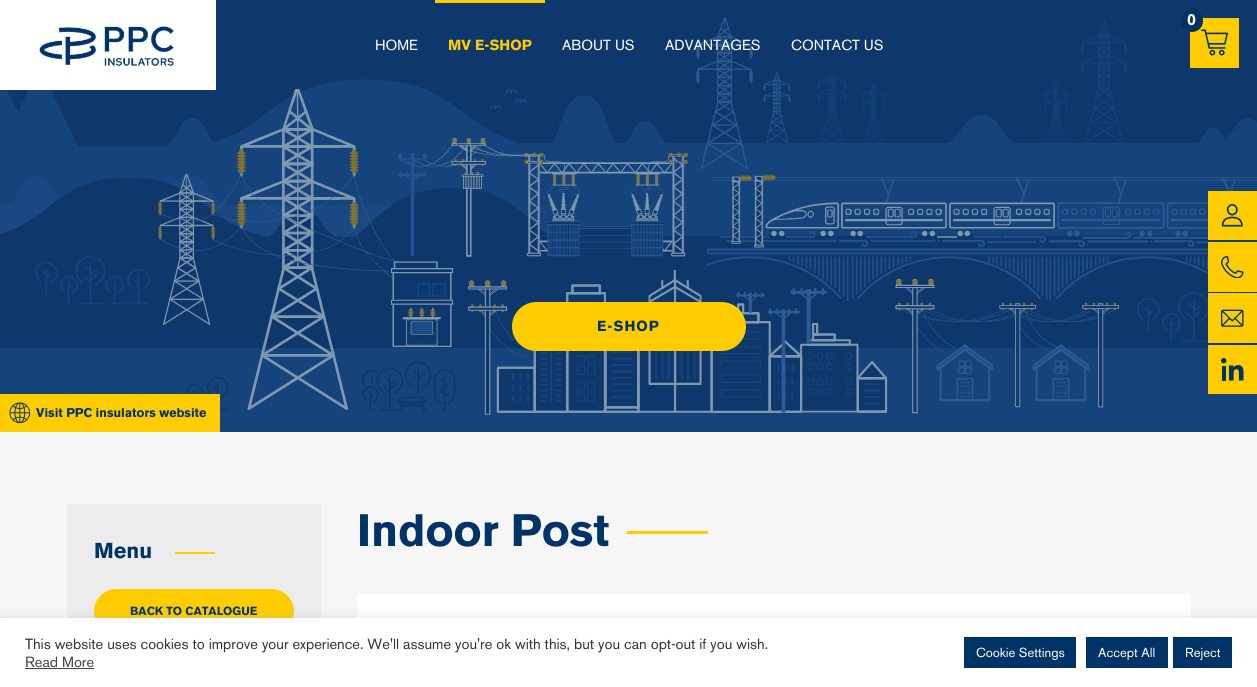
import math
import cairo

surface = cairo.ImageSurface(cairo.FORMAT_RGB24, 1257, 687)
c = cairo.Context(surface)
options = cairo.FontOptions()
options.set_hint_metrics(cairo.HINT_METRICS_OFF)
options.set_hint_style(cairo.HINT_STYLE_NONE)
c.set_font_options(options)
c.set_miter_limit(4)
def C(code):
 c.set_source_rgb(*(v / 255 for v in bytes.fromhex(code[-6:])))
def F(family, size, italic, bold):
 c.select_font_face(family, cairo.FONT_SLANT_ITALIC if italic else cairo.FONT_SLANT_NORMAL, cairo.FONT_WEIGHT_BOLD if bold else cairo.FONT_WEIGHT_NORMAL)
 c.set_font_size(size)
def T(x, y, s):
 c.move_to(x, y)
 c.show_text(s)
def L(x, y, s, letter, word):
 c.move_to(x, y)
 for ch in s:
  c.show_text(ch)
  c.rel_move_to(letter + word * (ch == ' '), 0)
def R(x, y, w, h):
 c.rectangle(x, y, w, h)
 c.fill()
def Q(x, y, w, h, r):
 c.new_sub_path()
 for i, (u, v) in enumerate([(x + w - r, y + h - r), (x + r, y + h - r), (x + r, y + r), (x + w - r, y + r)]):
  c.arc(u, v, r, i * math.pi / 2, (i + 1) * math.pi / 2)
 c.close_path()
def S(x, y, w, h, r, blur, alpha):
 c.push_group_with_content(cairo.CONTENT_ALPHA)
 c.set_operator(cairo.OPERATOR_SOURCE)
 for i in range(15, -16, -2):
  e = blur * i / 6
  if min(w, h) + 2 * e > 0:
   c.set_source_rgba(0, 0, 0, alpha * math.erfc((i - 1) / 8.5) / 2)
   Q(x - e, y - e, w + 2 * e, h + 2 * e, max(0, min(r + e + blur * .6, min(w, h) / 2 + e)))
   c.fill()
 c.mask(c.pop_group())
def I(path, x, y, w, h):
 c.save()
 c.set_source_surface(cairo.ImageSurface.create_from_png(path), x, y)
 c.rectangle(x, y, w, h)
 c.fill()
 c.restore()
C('f6f6f6')
c.paint()
I('3.png',0,0,1257,432)
C('ffcc00')
R(1190,18,49,50)
I('1.png',1201,29,27,27)
C('003366')
Q(1181,9,22,23,11)
c.fill()
F('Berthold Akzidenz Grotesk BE',16,0,1)
C('ffffff')
T(1187,25,'0')
R(0,0,216,90)
I('2.png',38,23,137,43)
F('Berthold Akzidenz Grotesk BE',14.5,0,0)
T(375,50,'HOME')
C('ffcc00')
R(435,0,110,3)
F('Berthold Akzidenz Grotesk BE',14.5,0,1)
T(448,50,'MV E-SHOP')
F('Berthold Akzidenz Grotesk BE',14.5,0,0)
C('ffffff')
T(562,50,'ABOUT US')
T(665,50,'ADVANTAGES')
T(791,50,'CONTACT US')
C('ffcc00')
Q(512,302,234,49,24.5)
c.fill()
F('Berthold Akzidenz Grotesk BE',14.5,0,1)
C('003366')
L(597,331,'E-SHOP',1,0)
C('ffcc00')
R(1208,191,49,49)
I('4.png',1221,204,22,23)
R(1208,242,49,50)
I('5.png',1221,256,23,22)
R(1208,293,49,50)
I('6.png',1221,309,23,18)
R(1208,345,49,49)
I('7.png',1221,358,23,23)
R(0,394,220,38)
I('8.png',9,402,22,22)
F('Berthold Akzidenz Grotesk BE',12.6,0,1)
C('003366')
T(36,417,'Visit PPC insulators website')
F('Berthold Akzidenz Grotesk BE',45,0,1)
T(357,546,'Indoor Post')
C('ffcc00')
R(627,531,81,3)
C('ffffff')
R(357,594,834,24)
C('ececec')
R(67,504,254,114)
F('Berthold Akzidenz Grotesk BE',21.5,0,1)
C('003366')
T(94,558,'Menu')
C('ffcc00')
R(175,552,40,2)
Q(94,589,200,45,22.5)
c.fill()
F('Berthold Akzidenz Grotesk BE',11.75,0,1)
C('003366')
T(130,615,'BACK TO CATALOGUE')
C('acabab')
S(0,617,1257,69,0,5,.3)
C('ffffff')
R(0,618,1257,69)
F('Berthold Akzidenz Grotesk BE',14.67,0,0)
C('333333')
T(25,649,'This website uses cookies to improve your experience. We\'ll assume you\'re ok with this, but you can opt-out if you wish.')
C('444444')
T(25,667,'Read More')
R(25,668,69,1)
C('003366')
R(964,637,112,31)
F('Berthold Akzidenz Grotesk BE',13,0,0)
C('ffffff')
T(976,657,'Cookie Settings')
C('003366')
R(1086,637,82,31)
C('ffffff')
T(1098,657,'Accept All')
C('003366')
R(1173,637,59,31)
C('ffffff')
T(1185,657,'Reject')
surface.write_to_png('o.png')
